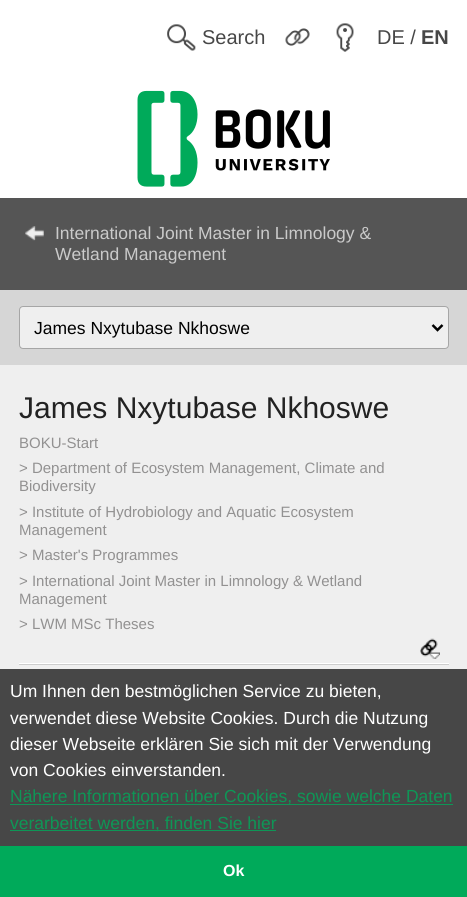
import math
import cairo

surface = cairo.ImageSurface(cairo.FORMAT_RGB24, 467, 897)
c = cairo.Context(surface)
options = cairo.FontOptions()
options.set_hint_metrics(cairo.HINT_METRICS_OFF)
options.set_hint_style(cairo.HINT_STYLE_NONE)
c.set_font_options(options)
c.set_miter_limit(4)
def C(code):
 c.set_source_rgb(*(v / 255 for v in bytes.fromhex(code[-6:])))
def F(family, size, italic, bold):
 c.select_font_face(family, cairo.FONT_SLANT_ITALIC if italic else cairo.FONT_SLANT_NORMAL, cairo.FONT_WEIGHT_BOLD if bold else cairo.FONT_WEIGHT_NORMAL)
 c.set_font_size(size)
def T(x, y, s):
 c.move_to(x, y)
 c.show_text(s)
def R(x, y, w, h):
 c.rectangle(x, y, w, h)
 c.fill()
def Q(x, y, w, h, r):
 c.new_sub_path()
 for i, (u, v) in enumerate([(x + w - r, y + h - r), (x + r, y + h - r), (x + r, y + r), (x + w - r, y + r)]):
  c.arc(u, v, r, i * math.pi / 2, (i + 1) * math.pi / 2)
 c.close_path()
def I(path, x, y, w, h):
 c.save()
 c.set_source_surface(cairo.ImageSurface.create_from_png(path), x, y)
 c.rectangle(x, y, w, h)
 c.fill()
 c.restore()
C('efefef')
c.paint()
C('ffffff')
R(0,0,467,198)
I('1.png',167,24,29,27)
F('Liberation Sans',20,0,0)
C('474747')
T(202,44,'Search')
I('2.png',285,28,25,18)
I('3.png',336,23,18,29)
T(377,44,'DE /')
F('Liberation Sans',20,0,1)
T(421,44,'EN')
I('4.png',137,90,193,97)
C('d6d6d6')
R(0,290,467,75)
C('555555')
R(0,198,467,92)
I('5.png',25,226,19,15)
F('Liberation Sans',17.5,0,0)
C('cacaca')
T(55,239,'International Joint Master in Limnology &')
T(55,260,'Wetland Management')
C('efefef')
Q(19.5,306.5,429,42,3.5)
c.fill_preserve()
C('a6a6a6')
c.set_line_width(1)
c.stroke()
c.new_path()
c.move_to(432.5,325)
c.line_to(437.5,330)
c.line_to(442.5,325)
C('000000')
c.set_line_width(2.5)
c.stroke()
T(34,334,'James Nxytubase Nkhoswe')
F('Liberation Sans',30,0,0)
C('222222')
T(19,418,'James Nxytubase Nkhoswe')
F('Liberation Sans',15,0,0)
C('929191')
T(19,448,'BOKU-Start')
T(19,473,'> Department of Ecosystem Management, Climate and')
T(19,491,'Biodiversity')
T(19,517,'> Institute of Hydrobiology and Aquatic Ecosystem')
T(19,535,'Management')
T(19,560,'> Master\'s Programmes')
T(19,586,'> International Joint Master in Limnology & Wetland')
T(19,604,'Management')
T(19,629,'> LWM MSc Theses')
I('6.png',420,638,20,21)
C('ffffff')
R(19,663,430,1)
C('cdcdcd')
R(19,664,430,1)
C('474747')
R(0,669,467,177)
F('Liberation Sans',17.5,0,0)
C('ffffff')
T(10,697,'Um Ihnen den bestmöglichen Service zu bieten,')
T(10,724,'verwendet diese Website Cookies. Durch die Nutzung')
T(10,750,'dieser Webseite erklären Sie sich mit der Verwendung')
T(10,776,'von Cookies einverstanden.')
C('0e9656')
R(10,804,443,1)
T(10,802,'Nähere Informationen über Cookies, sowie welche Daten')
R(10,830,266,1)
T(10,829,'verarbeitet werden, finden Sie hier')
C('00aa5a')
R(0,846,467,51)
F('Liberation Sans',16,0,1)
C('ffffff')
T(223,876,'Ok')
surface.write_to_png('o.png')
